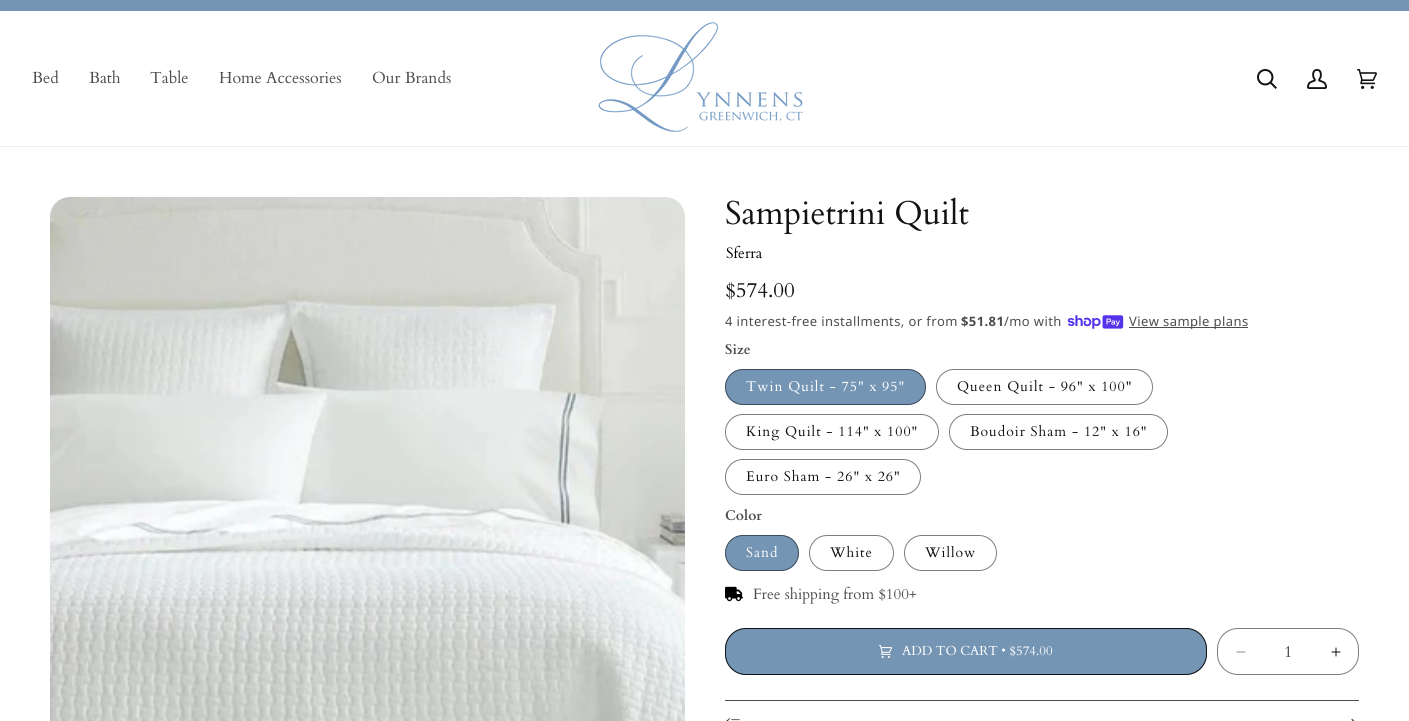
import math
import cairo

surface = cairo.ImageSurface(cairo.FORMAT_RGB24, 1409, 721)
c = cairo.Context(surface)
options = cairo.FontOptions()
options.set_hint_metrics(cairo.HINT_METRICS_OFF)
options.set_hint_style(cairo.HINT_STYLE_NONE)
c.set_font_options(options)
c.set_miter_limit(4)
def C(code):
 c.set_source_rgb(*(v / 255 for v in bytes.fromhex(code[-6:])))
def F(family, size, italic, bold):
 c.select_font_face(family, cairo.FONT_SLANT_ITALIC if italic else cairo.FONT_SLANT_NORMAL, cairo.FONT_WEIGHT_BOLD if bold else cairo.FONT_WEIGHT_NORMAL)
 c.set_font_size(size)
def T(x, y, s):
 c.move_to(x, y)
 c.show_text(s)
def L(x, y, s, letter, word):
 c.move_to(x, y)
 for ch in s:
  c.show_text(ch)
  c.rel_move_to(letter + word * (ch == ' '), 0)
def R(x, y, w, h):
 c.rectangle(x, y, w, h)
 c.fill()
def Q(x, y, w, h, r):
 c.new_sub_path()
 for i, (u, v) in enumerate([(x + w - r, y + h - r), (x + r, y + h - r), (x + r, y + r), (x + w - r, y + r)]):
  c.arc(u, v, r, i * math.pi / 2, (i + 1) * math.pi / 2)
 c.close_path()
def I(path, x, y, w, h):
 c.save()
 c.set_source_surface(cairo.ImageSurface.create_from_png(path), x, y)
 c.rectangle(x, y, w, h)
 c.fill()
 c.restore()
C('ffffff')
c.paint()
C('7595b4')
R(0,0,1409,11)
C('ececec')
R(0,146,1409,1)
F('Cardo',16,0,0)
C('4d4d4d')
T(32,83,'Bed')
T(89,83,'Bath')
T(150,83,'Table')
T(219,83,'Home Accessories')
T(372,83,'Our Brands')
I('1.png',598,22,205,110)
I('2.png',1257,69,20,20)
I('3.png',1307,69,20,20)
I('4.png',1357,69,20,20)
I('5.png',50,197,635,524)
F('Cardo',33,0,0)
C('121212')
T(725,224,'Sampietrini Quilt')
F('Cardo',15,0,0)
C('000000')
T(726,258,'Sferra')
F('Cardo',21,0,0)
C('121212')
T(725,297,'$574.00')
F('Noto Sans',13,0,0)
C('4d4d4d')
L(725,326,'4 interest-free installments, or from',.4,0)
F('Noto Sans',13,0,1)
L(961,326,'$51.81',.4,0)
F('Noto Sans',13,0,0)
L(1004,326,'/mo with',.4,0)
I('6.png',1067,315,57,14)
R(1129,327,119,1)
L(1129,326,'View sample plans',.4,0)
F('Cardo',14,0,1)
T(725,354,'Size')
C('7595b4')
Q(725,369,201,36,18)
c.fill()
Q(725.5,369.5,200,35,17.5)
c.set_source_rgba(0.071,0.071,0.071,0.55)
c.set_line_width(1)
c.stroke()
F('Cardo',14,0,0)
C('ffffff')
L(746,391,'Twin Quilt - 75" x 95"',1,0)
Q(936.5,369.5,216,35,17.5)
C('7d7d7d')
c.stroke()
C('121212')
L(957,391,'Queen Quilt - 96" x 100"',1,0)
Q(725.5,414.5,213,35,17.5)
C('7d7d7d')
c.stroke()
C('121212')
L(746,436,'King Quilt - 114" x 100"',1,0)
Q(949.5,414.5,218,35,17.5)
C('7d7d7d')
c.stroke()
C('121212')
L(970,436,'Boudoir Sham - 12" x 16"',1,0)
Q(725.5,459.5,195,35,17.5)
C('7d7d7d')
c.stroke()
C('121212')
L(746,481,'Euro Sham - 26" x 26"',1,0)
F('Cardo',14,0,1)
C('4d4d4d')
T(725,520,'Color')
C('7595b4')
Q(725,535,74,36,18)
c.fill()
Q(725.5,535.5,73,35,17.5)
c.set_source_rgba(0.071,0.071,0.071,0.55)
c.stroke()
F('Cardo',14,0,0)
C('ffffff')
L(746,557,'Sand',1,0)
Q(809.5,535.5,84,35,17.5)
C('7d7d7d')
c.stroke()
C('121212')
L(830,557,'White',1,0)
Q(904.5,535.5,92,35,17.5)
C('7d7d7d')
c.stroke()
C('121212')
L(925,557,'Willow',1,0)
I('7.png',725,586,18,16)
F('Cardo',15,0,0)
C('4d4d4d')
T(753,599,'Free shipping from $100+')
C('7595b4')
Q(725,628,482,47,21)
c.fill()
I('8.png',879,645,13,13)
Q(725.5,628.5,481,46,20.5)
C('121212')
c.stroke()
F('Cardo',13,0,0)
C('ffffff')
T(902,655,'ADD TO CART • $574.00')
I('9.png',1236,651,10,2)
I('10.png',1331,647,10,10)
Q(1217.5,628.5,141,46,20.5)
C('7d7d7d')
c.stroke()
F('Cardo',16,0,0)
C('363636')
T(1284,657,'1')
C('4d4d4d')
R(725,700,634,1)
I('11.png',726,718,14,3)
I('12.png',1351,718,4,3)
surface.write_to_png('o.png')
